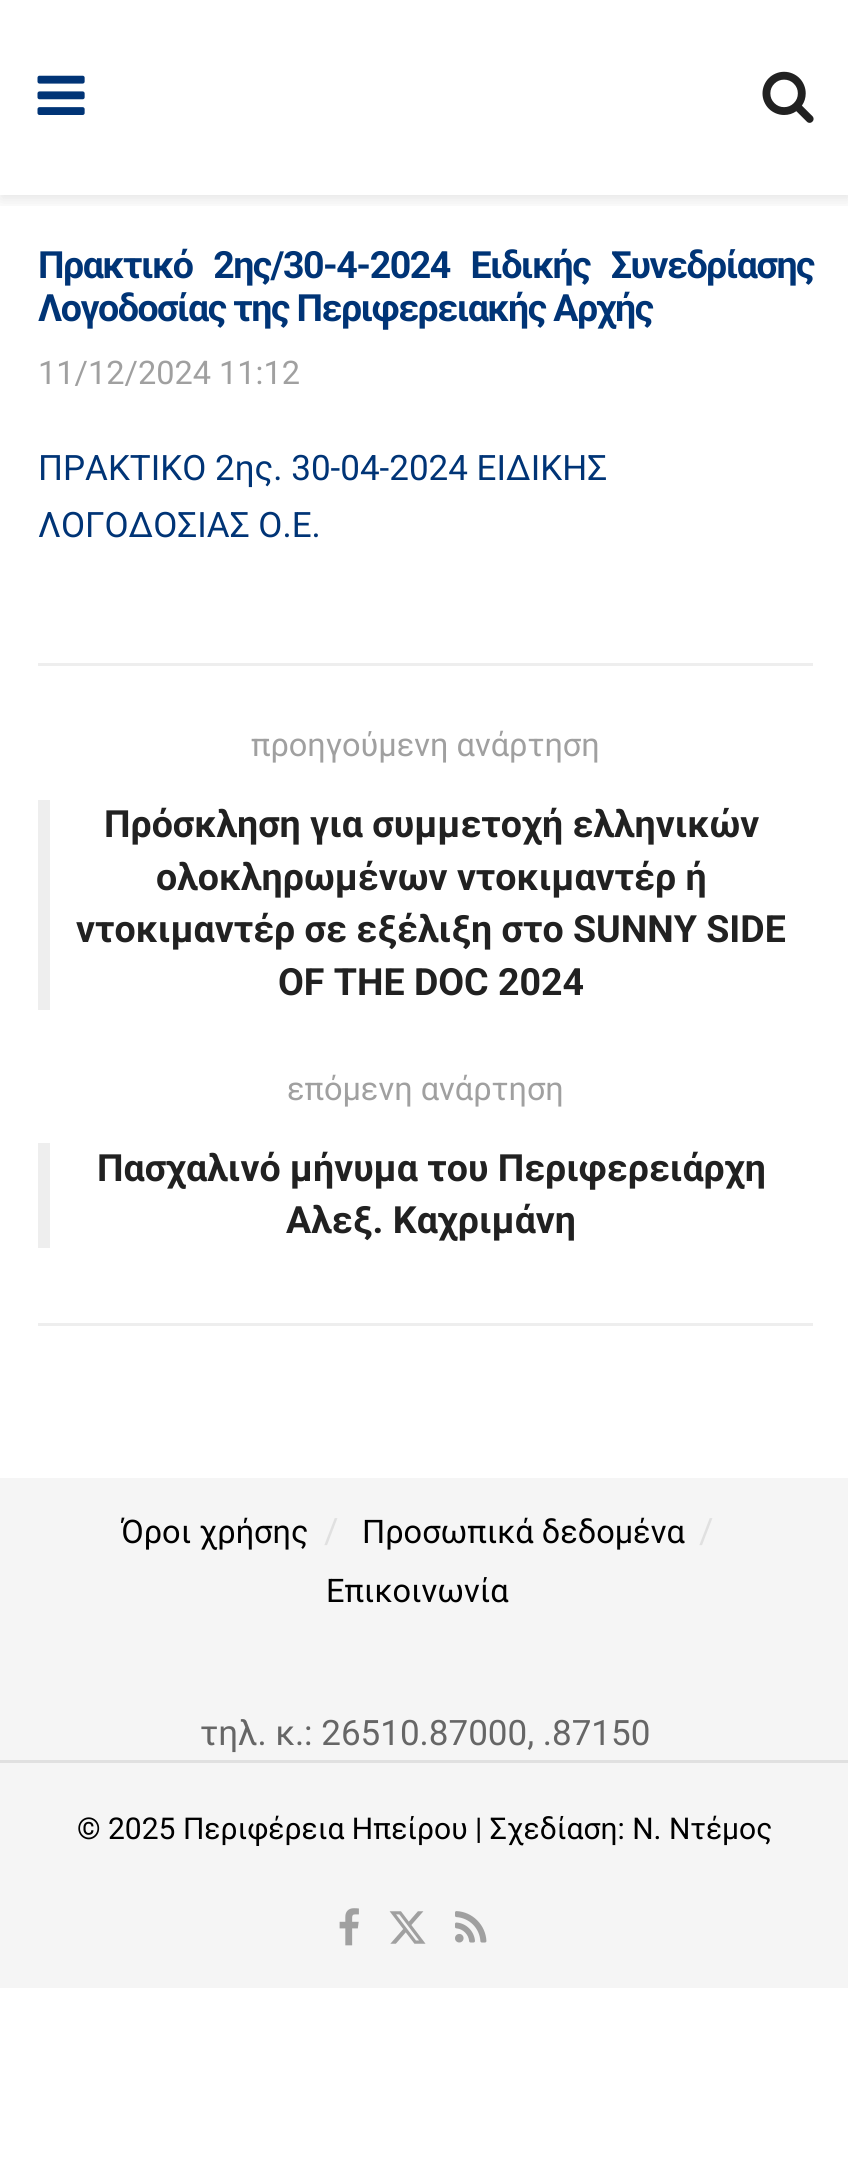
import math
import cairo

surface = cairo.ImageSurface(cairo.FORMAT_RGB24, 848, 2181)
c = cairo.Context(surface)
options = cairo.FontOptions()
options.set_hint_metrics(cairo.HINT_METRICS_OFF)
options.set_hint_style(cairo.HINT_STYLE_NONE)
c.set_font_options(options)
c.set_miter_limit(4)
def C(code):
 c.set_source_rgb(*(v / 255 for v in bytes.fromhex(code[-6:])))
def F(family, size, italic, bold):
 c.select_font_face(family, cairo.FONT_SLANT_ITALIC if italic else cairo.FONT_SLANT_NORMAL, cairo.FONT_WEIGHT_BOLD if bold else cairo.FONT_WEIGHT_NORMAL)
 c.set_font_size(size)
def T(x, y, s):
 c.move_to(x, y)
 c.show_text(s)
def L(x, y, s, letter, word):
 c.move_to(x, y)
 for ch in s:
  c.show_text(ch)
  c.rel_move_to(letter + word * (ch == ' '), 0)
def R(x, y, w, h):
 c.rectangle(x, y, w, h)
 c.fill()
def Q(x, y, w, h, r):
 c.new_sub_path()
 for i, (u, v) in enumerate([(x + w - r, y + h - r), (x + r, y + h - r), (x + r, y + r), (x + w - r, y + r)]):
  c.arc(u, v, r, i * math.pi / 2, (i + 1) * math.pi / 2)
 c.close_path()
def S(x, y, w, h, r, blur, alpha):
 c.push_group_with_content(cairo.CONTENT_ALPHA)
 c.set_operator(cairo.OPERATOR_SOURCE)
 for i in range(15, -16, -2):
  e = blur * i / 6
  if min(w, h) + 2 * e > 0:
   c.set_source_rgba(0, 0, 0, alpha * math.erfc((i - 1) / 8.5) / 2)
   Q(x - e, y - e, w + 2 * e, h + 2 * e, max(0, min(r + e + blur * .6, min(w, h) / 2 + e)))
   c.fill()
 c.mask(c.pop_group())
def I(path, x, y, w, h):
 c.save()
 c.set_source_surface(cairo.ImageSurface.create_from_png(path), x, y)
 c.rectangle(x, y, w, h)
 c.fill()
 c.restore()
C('ffffff')
c.paint()
c.save()
c.rectangle(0,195,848,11)
c.clip()
C('000000')
S(0,5,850,195,0,7.5,.1)
c.restore()
I('1.png',37,75,48,40)
I('2.png',762,71,52,52)
F('Roboto',37.5,0,1)
C('003476')
L(38,278,'Πρακτικό 2ης/30-4-2024 Ειδικής Συνεδρίασης',-1.5,13)
L(38,321,'Λογοδοσίας της Περιφερειακής Αρχής',-1.5,0)
F('Roboto',32.5,0,0)
C('a0a0a0')
T(38,384,'11/12/2024 11:12')
F('Roboto',35,0,0)
C('003476')
T(38,480,'ΠΡΑΚΤΙΚΟ 2ης. 30-04-2024 ΕΙΔΙΚΗΣ')
T(38,537,'ΛΟΓΟΔΟΣΙΑΣ Ο.Ε.')
C('eeeeee')
R(38,663,775,3)
R(38,1323,775,3)
F('Roboto',32.5,0,0)
C('a0a0a0')
T(251,756,'προηγούμενη ανάρτηση')
C('eeeeee')
R(38,800,12,210)
F('Roboto',37.5,0,1)
C('212121')
T(104,837,'Πρόσκληση για συμμετοχή ελληνικών')
T(156,890,'ολοκληρωμένων ντοκιμαντέρ ή')
T(76,942,'ντοκιμαντέρ σε εξέλιξη στο SUNNY SIDE')
T(278,995,'OF THE DOC 2024')
F('Roboto',32.5,0,0)
C('a0a0a0')
T(287,1100,'επόμενη ανάρτηση')
C('eeeeee')
R(38,1143,12,105)
F('Roboto',37.5,0,1)
C('212121')
T(97,1181,'Πασχαλινό μήνυμα του Περιφερειάρχη')
T(286,1233,'Αλεξ. Καχριμάνη')
C('f5f5f5')
R(0,1478,848,510)
F('Roboto',32.5,0,0)
C('000000')
T(121,1543,'Όροι χρήσης')
F('Roboto',35,0,0)
C('e0e0e0')
T(324,1543,'/')
F('Roboto',32.5,0,0)
C('000000')
T(362,1543,'Προσωπικά δεδομένα')
F('Roboto',35,0,0)
C('e0e0e0')
T(699,1543,'/')
F('Roboto',32.5,0,0)
C('000000')
T(326,1602,'Επικοινωνία')
F('Roboto',35,0,0)
C('666666')
T(200,1745,'τηλ. κ.: 26510.87000, .87150')
C('e0e0e0')
R(0,1760,848,3)
F('Roboto',30,0,0)
C('000000')
T(77,1839,'© 2025 Περιφέρεια Ηπείρου | Σχεδίαση: Ν. Ντέμος')
I('3.png',339,1908,20,38)
I('4.png',389,1911,37,33)
I('5.png',455,1911,32,32)
surface.write_to_png('o.png')
